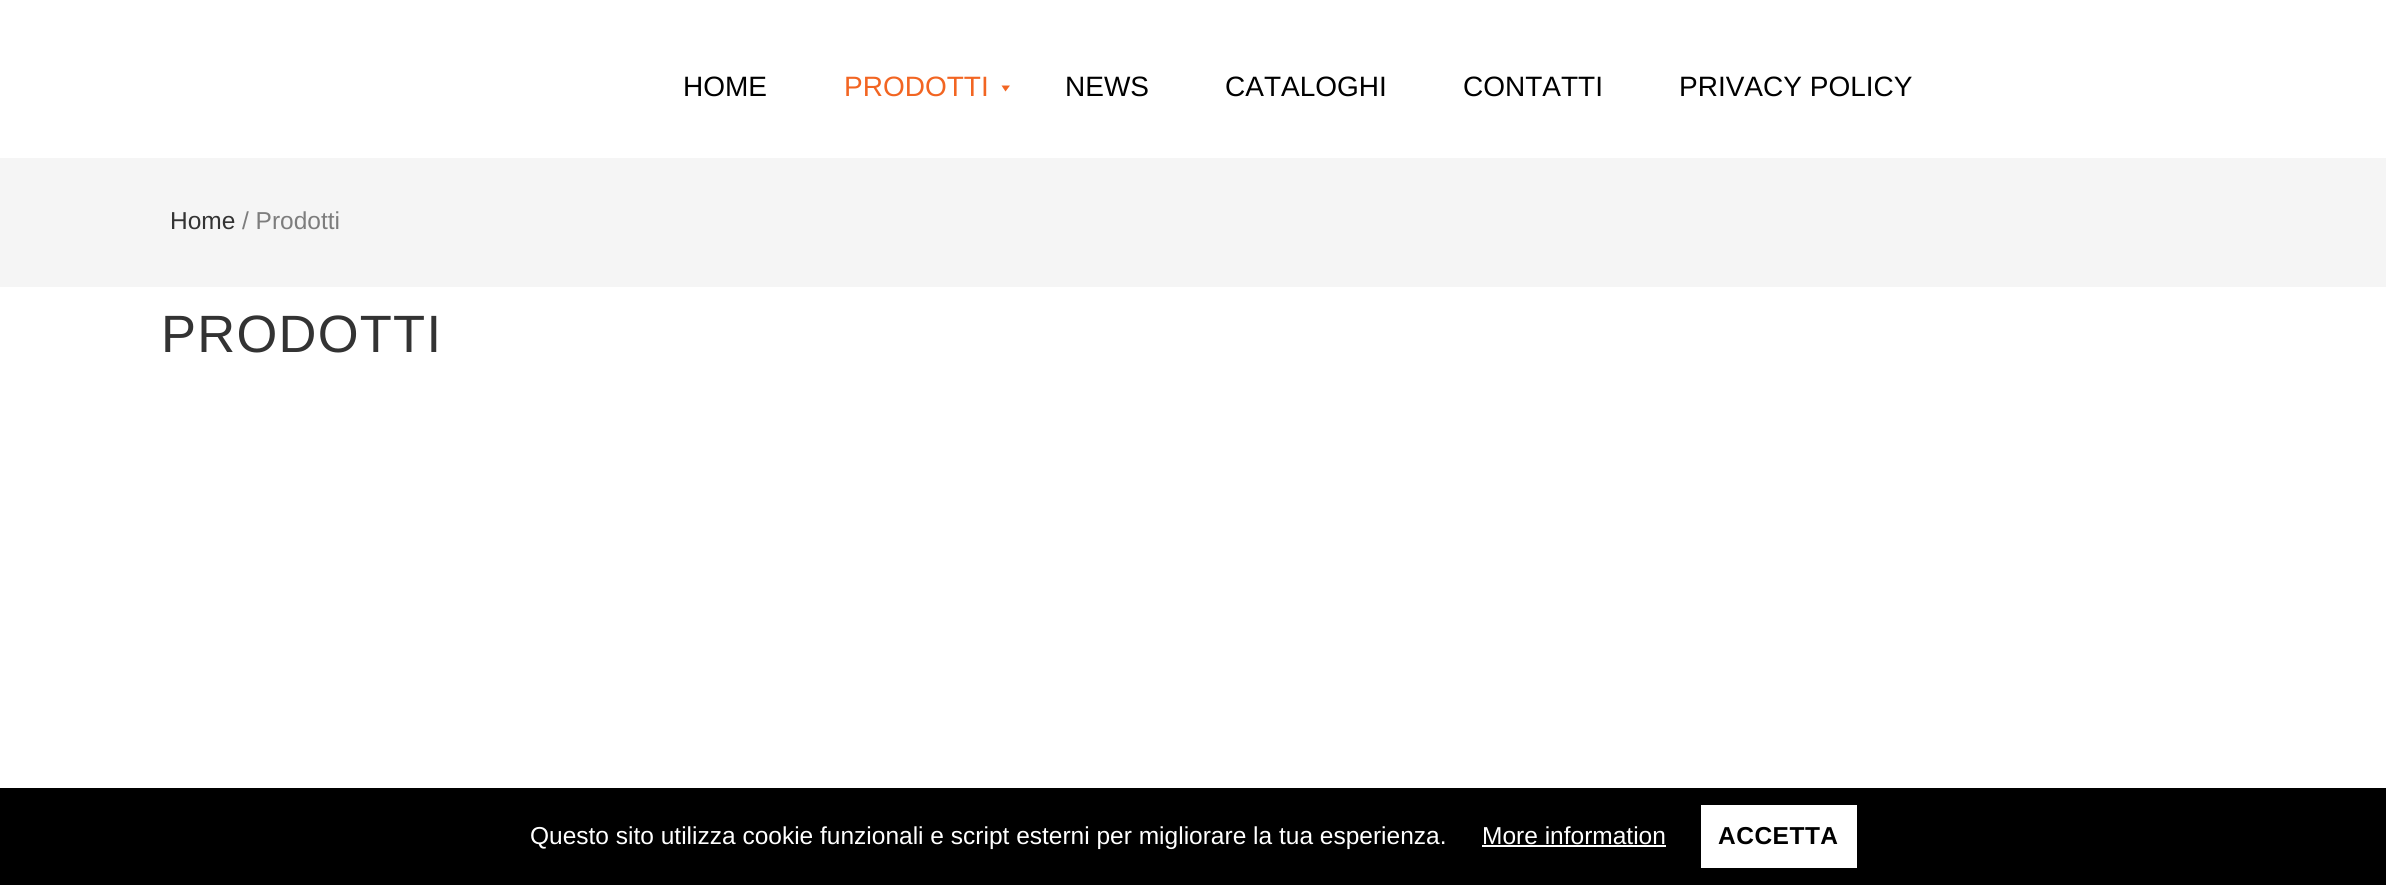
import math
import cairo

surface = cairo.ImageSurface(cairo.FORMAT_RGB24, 2386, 885)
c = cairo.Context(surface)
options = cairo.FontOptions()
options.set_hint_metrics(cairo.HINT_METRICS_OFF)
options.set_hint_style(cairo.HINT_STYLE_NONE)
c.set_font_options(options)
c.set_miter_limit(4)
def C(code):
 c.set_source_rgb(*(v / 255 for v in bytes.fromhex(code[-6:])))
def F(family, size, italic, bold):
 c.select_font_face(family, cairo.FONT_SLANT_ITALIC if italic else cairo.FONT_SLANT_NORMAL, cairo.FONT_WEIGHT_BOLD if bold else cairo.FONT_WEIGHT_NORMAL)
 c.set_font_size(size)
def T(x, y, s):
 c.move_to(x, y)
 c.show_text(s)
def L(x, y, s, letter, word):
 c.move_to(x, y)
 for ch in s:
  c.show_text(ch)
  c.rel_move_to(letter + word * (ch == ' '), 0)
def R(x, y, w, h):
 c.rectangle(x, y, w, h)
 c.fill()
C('ffffff')
c.paint()
F('Liberation Sans',28,0,0)
C('000000')
T(683,96,'HOME')
C('f26522')
T(844,96,'PRODOTTI')
c.new_path()
c.move_to(1010,85.5)
c.line_to(1005.5,91.5)
c.line_to(1001.5,85.5)
c.close_path()
c.fill()
C('000000')
T(1065,96,'NEWS')
T(1225,96,'CATALOGHI')
T(1463,96,'CONTATTI')
T(1679,96,'PRIVACY POLICY')
C('f5f5f5')
R(0,158,2386,129)
F('Liberation Sans',24.5,0,0)
C('333333')
T(170,229,'Home')
C('7d7d7d')
T(242,229,'/ Prodotti')
F('Liberation Sans',52.5,0,0)
C('333333')
L(161,352,'PRODOTTI',1.25,0)
C('000000')
R(0,788,2386,97)
F('Liberation Sans',24.5,0,0)
C('ffffff')
T(530,844,'Questo sito utilizza cookie funzionali e script esterni per migliorare la tua esperienza.')
T(1482,844,'More information')
R(1482,845,184,2)
R(1701,805,156,63)
F('Liberation Sans',24.5,0,1)
C('000000')
L(1718,844,'ACCETTA',.5,0)
surface.write_to_png('o.png')
